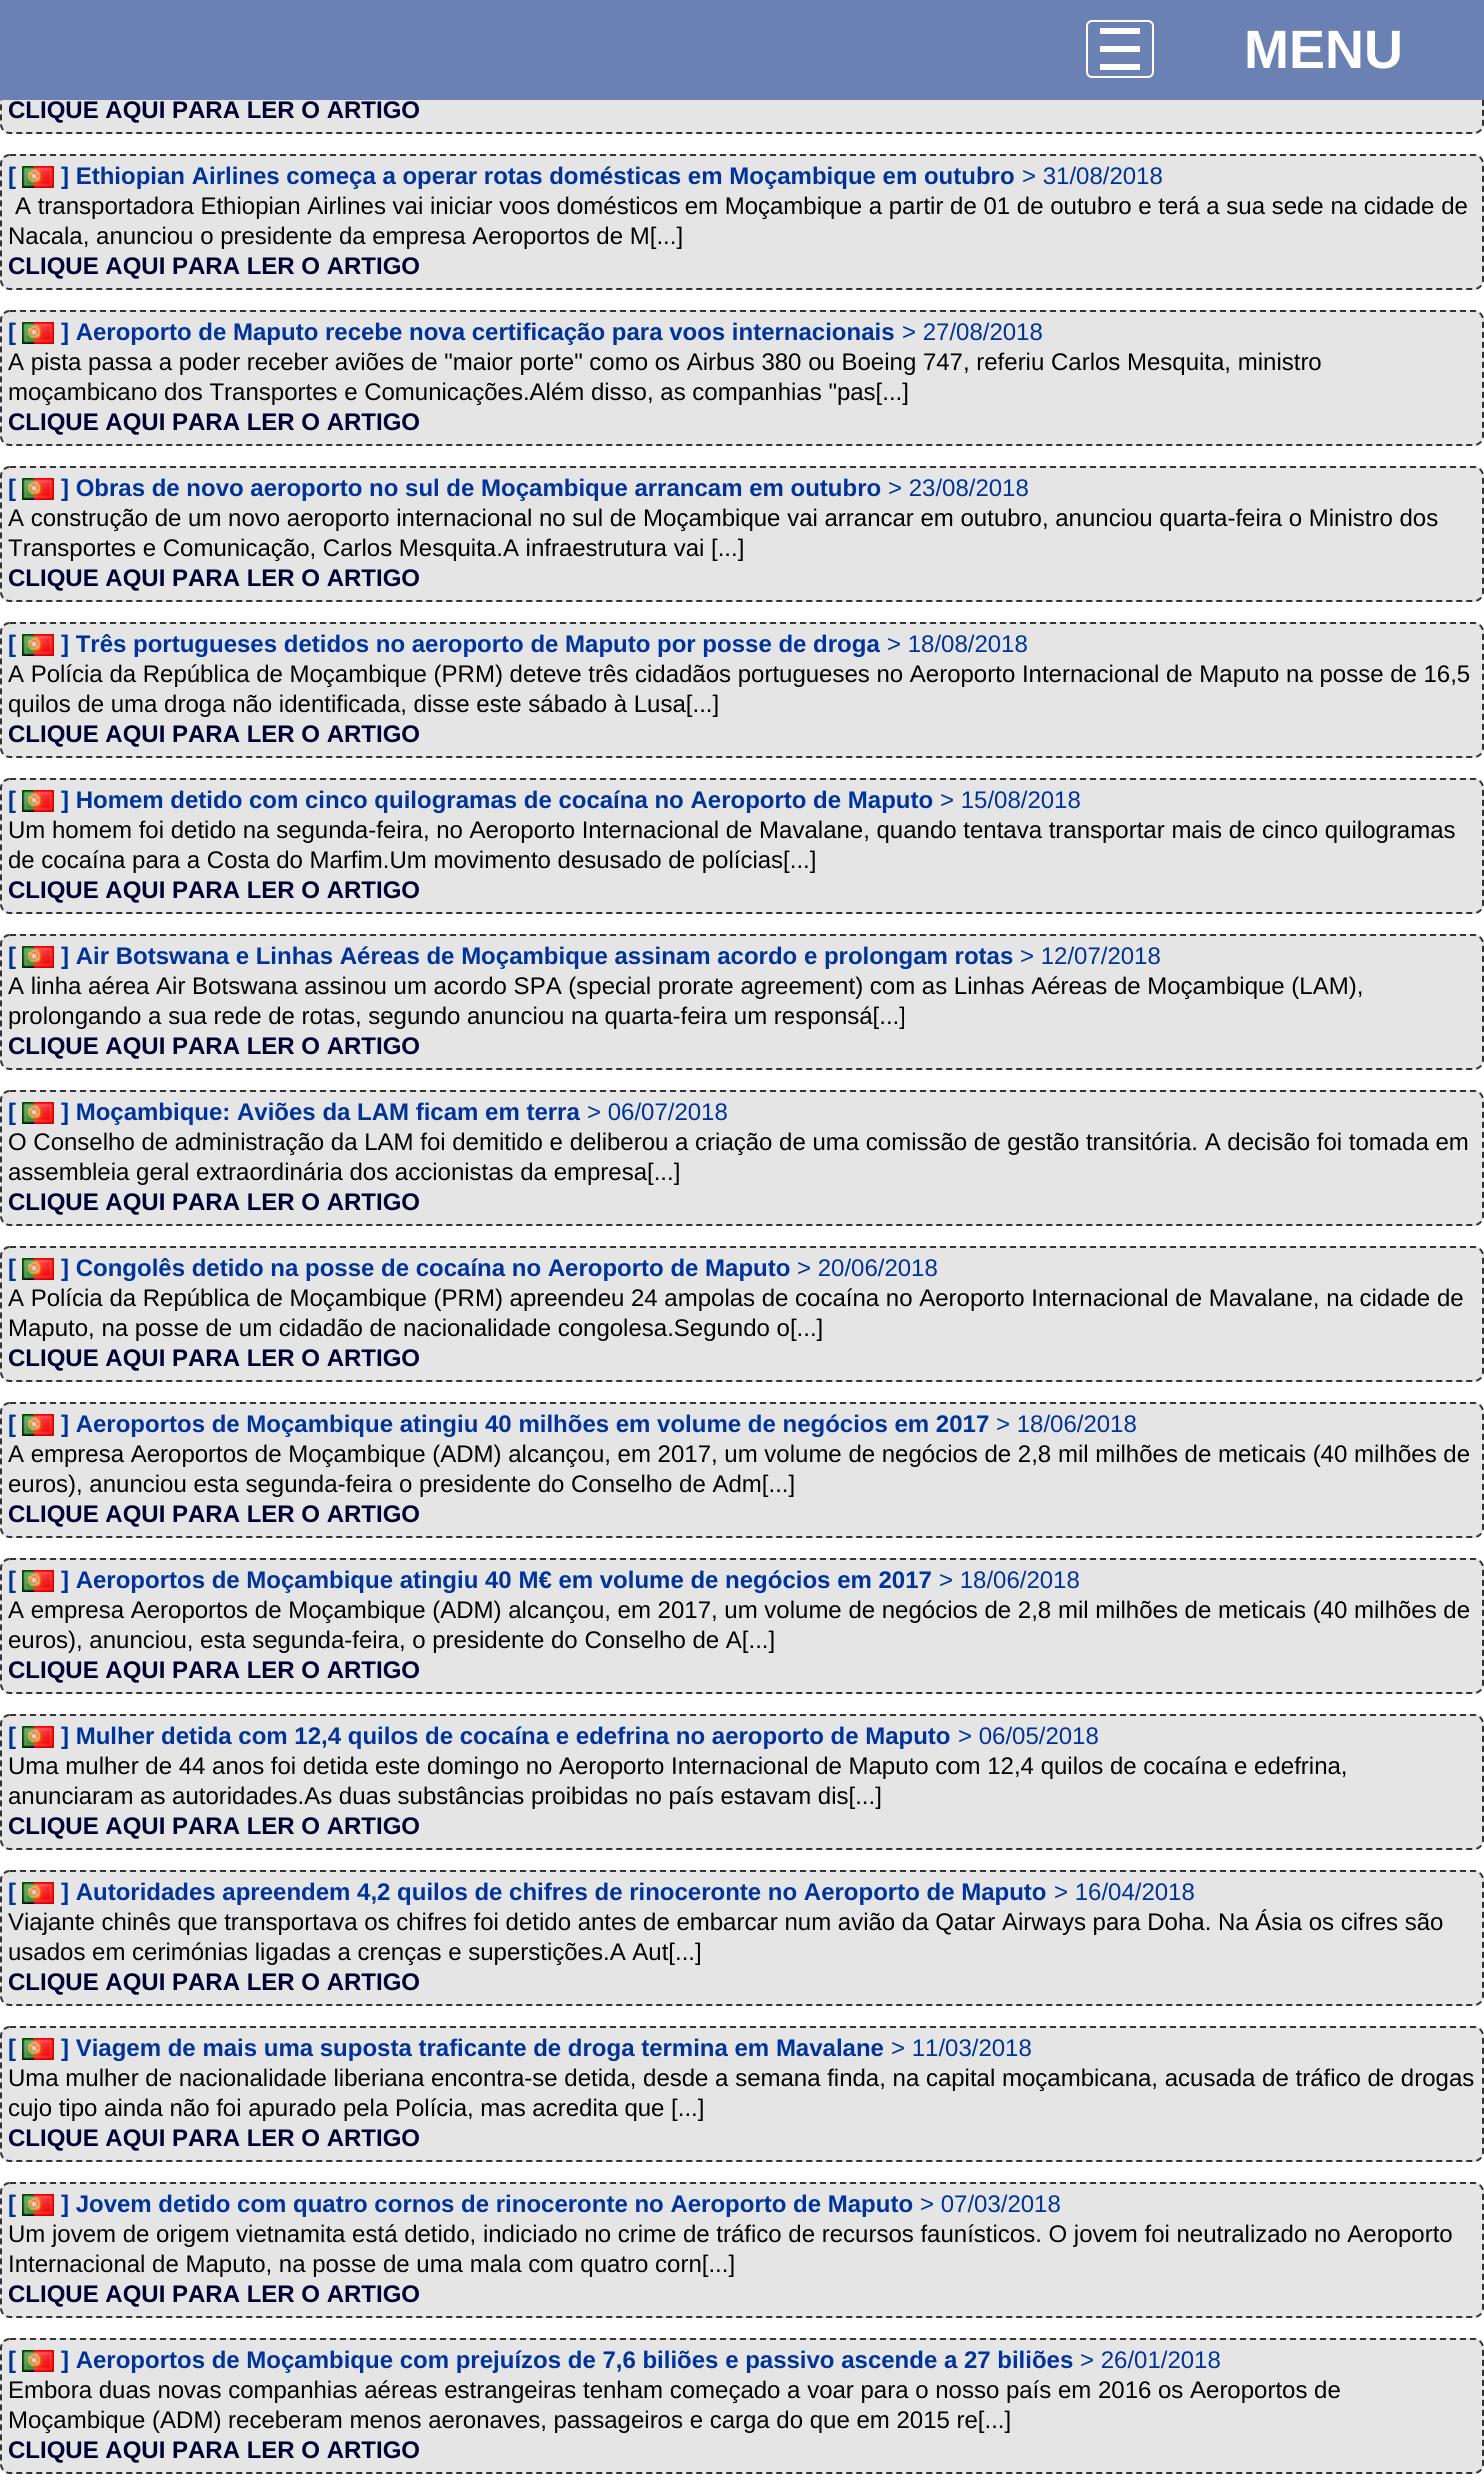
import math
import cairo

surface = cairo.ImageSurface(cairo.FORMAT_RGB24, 1484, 2485)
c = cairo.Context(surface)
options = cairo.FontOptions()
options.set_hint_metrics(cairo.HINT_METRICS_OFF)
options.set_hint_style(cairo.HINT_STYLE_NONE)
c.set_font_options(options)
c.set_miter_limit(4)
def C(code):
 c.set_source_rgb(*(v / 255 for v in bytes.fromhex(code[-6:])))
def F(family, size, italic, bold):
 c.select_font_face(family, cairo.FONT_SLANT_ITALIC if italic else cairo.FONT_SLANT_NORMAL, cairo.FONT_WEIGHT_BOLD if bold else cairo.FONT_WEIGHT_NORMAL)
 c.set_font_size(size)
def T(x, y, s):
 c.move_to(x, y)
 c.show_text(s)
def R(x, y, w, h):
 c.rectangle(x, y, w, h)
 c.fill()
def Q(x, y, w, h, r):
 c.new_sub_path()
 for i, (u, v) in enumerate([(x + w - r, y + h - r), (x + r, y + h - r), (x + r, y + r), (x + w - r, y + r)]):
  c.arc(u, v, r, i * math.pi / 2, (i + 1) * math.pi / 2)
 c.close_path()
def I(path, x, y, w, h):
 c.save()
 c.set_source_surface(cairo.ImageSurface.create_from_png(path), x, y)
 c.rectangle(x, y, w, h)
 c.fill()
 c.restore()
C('ffffff')
c.paint()
C('e5e5e5')
Q(0,-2,1484,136,10)
c.fill()
c.new_path()
c.move_to(10,-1)
c.line_to(1474,-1)
c.curve_to(1479,-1,1483,3,1483,8)
c.line_to(1483,124)
c.curve_to(1483,129,1479,133,1474,133)
c.line_to(10,133)
c.curve_to(5,133,1,129,1,124)
c.line_to(1,8)
c.curve_to(1,3,5,-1,10,-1)
c.close_path()
C('333333')
c.set_dash([6,4])
c.stroke()
C('6b81b3')
R(0,0,1484,100)
Q(1087,21,66,56,5)
C('ffffff')
c.set_dash([])
c.stroke()
R(1100,28,40,6)
R(1100,46,40,6)
R(1100,64,40,6)
F('Liberation Sans',54,0,1)
T(1244,68,'MENU')
F('Liberation Sans',24,0,1)
C('000033')
T(8,118,'CLIQUE AQUI PARA LER O ARTIGO')
C('e5e5e5')
Q(0,154,1484,136,10)
c.fill()
c.new_path()
c.move_to(10,155)
c.line_to(1474,155)
c.curve_to(1479,155,1483,159,1483,164)
c.line_to(1483,280)
c.curve_to(1483,285,1479,289,1474,289)
c.line_to(10,289)
c.curve_to(5,289,1,285,1,280)
c.line_to(1,164)
c.curve_to(1,159,5,155,10,155)
c.close_path()
C('333333')
c.set_dash([6,4])
c.stroke()
C('003399')
T(8,184,'[')
I('1.png',22,166,32,22)
T(61,184,'] Ethiopian Airlines começa a operar rotas domésticas em Moçambique em outubro')
F('Liberation Sans',24,0,0)
T(1022,184,'> 31/08/2018')
C('000000')
T(15,214,'A transportadora Ethiopian Airlines vai iniciar voos domésticos em Moçambique a partir de 01 de outubro e terá a sua sede na cidade de')
T(8,244,'Nacala, anunciou o presidente da empresa Aeroportos de M[...]')
F('Liberation Sans',24,0,1)
C('000033')
T(8,274,'CLIQUE AQUI PARA LER O ARTIGO')
C('e5e5e5')
Q(0,310,1484,136,10)
c.fill()
c.new_path()
c.move_to(10,311)
c.line_to(1474,311)
c.curve_to(1479,311,1483,315,1483,320)
c.line_to(1483,436)
c.curve_to(1483,441,1479,445,1474,445)
c.line_to(10,445)
c.curve_to(5,445,1,441,1,436)
c.line_to(1,320)
c.curve_to(1,315,5,311,10,311)
c.close_path()
C('333333')
c.stroke()
C('003399')
T(8,340,'[')
I('1.png',22,322,32,22)
T(61,340,'] Aeroporto de Maputo recebe nova certificação para voos internacionais')
F('Liberation Sans',24,0,0)
T(902,340,'> 27/08/2018')
C('000000')
T(8,370,'A pista passa a poder receber aviões de "maior porte" como os Airbus 380 ou Boeing 747, referiu Carlos Mesquita, ministro')
T(8,400,'moçambicano dos Transportes e Comunicações.Além disso, as companhias "pas[...]')
F('Liberation Sans',24,0,1)
C('000033')
T(8,430,'CLIQUE AQUI PARA LER O ARTIGO')
C('e5e5e5')
Q(0,466,1484,136,10)
c.fill()
c.new_path()
c.move_to(10,467)
c.line_to(1474,467)
c.curve_to(1479,467,1483,471,1483,476)
c.line_to(1483,592)
c.curve_to(1483,597,1479,601,1474,601)
c.line_to(10,601)
c.curve_to(5,601,1,597,1,592)
c.line_to(1,476)
c.curve_to(1,471,5,467,10,467)
c.close_path()
C('333333')
c.stroke()
C('003399')
T(8,496,'[')
I('1.png',22,478,32,22)
T(61,496,'] Obras de novo aeroporto no sul de Moçambique arrancam em outubro')
F('Liberation Sans',24,0,0)
T(888,496,'> 23/08/2018')
C('000000')
T(8,526,'A construção de um novo aeroporto internacional no sul de Moçambique vai arrancar em outubro, anunciou quarta-feira o Ministro dos')
T(8,556,'Transportes e Comunicação, Carlos Mesquita.A infraestrutura vai [...]')
F('Liberation Sans',24,0,1)
C('000033')
T(8,586,'CLIQUE AQUI PARA LER O ARTIGO')
C('e5e5e5')
Q(0,622,1484,136,10)
c.fill()
c.new_path()
c.move_to(10,623)
c.line_to(1474,623)
c.curve_to(1479,623,1483,627,1483,632)
c.line_to(1483,748)
c.curve_to(1483,753,1479,757,1474,757)
c.line_to(10,757)
c.curve_to(5,757,1,753,1,748)
c.line_to(1,632)
c.curve_to(1,627,5,623,10,623)
c.close_path()
C('333333')
c.stroke()
C('003399')
T(8,652,'[')
I('1.png',22,634,32,22)
T(61,652,'] Três portugueses detidos no aeroporto de Maputo por posse de droga')
F('Liberation Sans',24,0,0)
T(887,652,'> 18/08/2018')
C('000000')
T(8,682,'A Polícia da República de Moçambique (PRM) deteve três cidadãos portugueses no Aeroporto Internacional de Maputo na posse de 16,5')
T(8,712,'quilos de uma droga não identificada, disse este sábado à Lusa[...]')
F('Liberation Sans',24,0,1)
C('000033')
T(8,742,'CLIQUE AQUI PARA LER O ARTIGO')
C('e5e5e5')
Q(0,778,1484,136,10)
c.fill()
c.new_path()
c.move_to(10,779)
c.line_to(1474,779)
c.curve_to(1479,779,1483,783,1483,788)
c.line_to(1483,904)
c.curve_to(1483,909,1479,913,1474,913)
c.line_to(10,913)
c.curve_to(5,913,1,909,1,904)
c.line_to(1,788)
c.curve_to(1,783,5,779,10,779)
c.close_path()
C('333333')
c.stroke()
C('003399')
T(8,808,'[')
I('1.png',22,790,32,22)
T(61,808,'] Homem detido com cinco quilogramas de cocaína no Aeroporto de Maputo')
F('Liberation Sans',24,0,0)
T(940,808,'> 15/08/2018')
C('000000')
T(8,838,'Um homem foi detido na segunda-feira, no Aeroporto Internacional de Mavalane, quando tentava transportar mais de cinco quilogramas')
T(8,868,'de cocaína para a Costa do Marfim.Um movimento desusado de polícias[...]')
F('Liberation Sans',24,0,1)
C('000033')
T(8,898,'CLIQUE AQUI PARA LER O ARTIGO')
C('e5e5e5')
Q(0,934,1484,136,10)
c.fill()
c.new_path()
c.move_to(10,935)
c.line_to(1474,935)
c.curve_to(1479,935,1483,939,1483,944)
c.line_to(1483,1060)
c.curve_to(1483,1065,1479,1069,1474,1069)
c.line_to(10,1069)
c.curve_to(5,1069,1,1065,1,1060)
c.line_to(1,944)
c.curve_to(1,939,5,935,10,935)
c.close_path()
C('333333')
c.stroke()
C('003399')
T(8,964,'[')
I('1.png',22,946,32,22)
T(61,964,'] Air Botswana e Linhas Aéreas de Moçambique assinam acordo e prolongam rotas')
F('Liberation Sans',24,0,0)
T(1020,964,'> 12/07/2018')
C('000000')
T(8,994,'A linha aérea Air Botswana assinou um acordo SPA (special prorate agreement) com as Linhas Aéreas de Moçambique (LAM),')
T(8,1024,'prolongando a sua rede de rotas, segundo anunciou na quarta-feira um responsá[...]')
F('Liberation Sans',24,0,1)
C('000033')
T(8,1054,'CLIQUE AQUI PARA LER O ARTIGO')
C('e5e5e5')
Q(0,1090,1484,136,10)
c.fill()
c.new_path()
c.move_to(10,1091)
c.line_to(1474,1091)
c.curve_to(1479,1091,1483,1095,1483,1100)
c.line_to(1483,1216)
c.curve_to(1483,1221,1479,1225,1474,1225)
c.line_to(10,1225)
c.curve_to(5,1225,1,1221,1,1216)
c.line_to(1,1100)
c.curve_to(1,1095,5,1091,10,1091)
c.close_path()
C('333333')
c.stroke()
C('003399')
T(8,1120,'[')
I('1.png',22,1102,32,22)
T(61,1120,'] Moçambique: Aviões da LAM ficam em terra')
F('Liberation Sans',24,0,0)
T(587,1120,'> 06/07/2018')
C('000000')
T(8,1150,'O Conselho de administração da LAM foi demitido e deliberou a criação de uma comissão de gestão transitória. A decisão foi tomada em')
T(8,1180,'assembleia geral extraordinária dos accionistas da empresa[...]')
F('Liberation Sans',24,0,1)
C('000033')
T(8,1210,'CLIQUE AQUI PARA LER O ARTIGO')
C('e5e5e5')
Q(0,1246,1484,136,10)
c.fill()
c.new_path()
c.move_to(10,1247)
c.line_to(1474,1247)
c.curve_to(1479,1247,1483,1251,1483,1256)
c.line_to(1483,1372)
c.curve_to(1483,1377,1479,1381,1474,1381)
c.line_to(10,1381)
c.curve_to(5,1381,1,1377,1,1372)
c.line_to(1,1256)
c.curve_to(1,1251,5,1247,10,1247)
c.close_path()
C('333333')
c.stroke()
C('003399')
T(8,1276,'[')
I('1.png',22,1258,32,22)
T(61,1276,'] Congolês detido na posse de cocaína no Aeroporto de Maputo')
F('Liberation Sans',24,0,0)
T(797,1276,'> 20/06/2018')
C('000000')
T(8,1306,'A Polícia da República de Moçambique (PRM) apreendeu 24 ampolas de cocaína no Aeroporto Internacional de Mavalane, na cidade de')
T(8,1336,'Maputo, na posse de um cidadão de nacionalidade congolesa.Segundo o[...]')
F('Liberation Sans',24,0,1)
C('000033')
T(8,1366,'CLIQUE AQUI PARA LER O ARTIGO')
C('e5e5e5')
Q(0,1402,1484,136,10)
c.fill()
c.new_path()
c.move_to(10,1403)
c.line_to(1474,1403)
c.curve_to(1479,1403,1483,1407,1483,1412)
c.line_to(1483,1528)
c.curve_to(1483,1533,1479,1537,1474,1537)
c.line_to(10,1537)
c.curve_to(5,1537,1,1533,1,1528)
c.line_to(1,1412)
c.curve_to(1,1407,5,1403,10,1403)
c.close_path()
C('333333')
c.stroke()
C('003399')
T(8,1432,'[')
I('1.png',22,1414,32,22)
T(61,1432,'] Aeroportos de Moçambique atingiu 40 milhões em volume de negócios em 2017')
F('Liberation Sans',24,0,0)
T(996,1432,'> 18/06/2018')
C('000000')
T(8,1462,'A empresa Aeroportos de Moçambique (ADM) alcançou, em 2017, um volume de negócios de 2,8 mil milhões de meticais (40 milhões de')
T(8,1492,'euros), anunciou esta segunda-feira o presidente do Conselho de Adm[...]')
F('Liberation Sans',24,0,1)
C('000033')
T(8,1522,'CLIQUE AQUI PARA LER O ARTIGO')
C('e5e5e5')
Q(0,1558,1484,136,10)
c.fill()
c.new_path()
c.move_to(10,1559)
c.line_to(1474,1559)
c.curve_to(1479,1559,1483,1563,1483,1568)
c.line_to(1483,1684)
c.curve_to(1483,1689,1479,1693,1474,1693)
c.line_to(10,1693)
c.curve_to(5,1693,1,1689,1,1684)
c.line_to(1,1568)
c.curve_to(1,1563,5,1559,10,1559)
c.close_path()
C('333333')
c.stroke()
C('003399')
T(8,1588,'[')
I('1.png',22,1570,32,22)
T(61,1588,'] Aeroportos de Moçambique atingiu 40 M€ em volume de negócios em 2017')
F('Liberation Sans',24,0,0)
T(939,1588,'> 18/06/2018')
C('000000')
T(8,1618,'A empresa Aeroportos de Moçambique (ADM) alcançou, em 2017, um volume de negócios de 2,8 mil milhões de meticais (40 milhões de')
T(8,1648,'euros), anunciou, esta segunda-feira, o presidente do Conselho de A[...]')
F('Liberation Sans',24,0,1)
C('000033')
T(8,1678,'CLIQUE AQUI PARA LER O ARTIGO')
C('e5e5e5')
Q(0,1714,1484,136,10)
c.fill()
c.new_path()
c.move_to(10,1715)
c.line_to(1474,1715)
c.curve_to(1479,1715,1483,1719,1483,1724)
c.line_to(1483,1840)
c.curve_to(1483,1845,1479,1849,1474,1849)
c.line_to(10,1849)
c.curve_to(5,1849,1,1845,1,1840)
c.line_to(1,1724)
c.curve_to(1,1719,5,1715,10,1715)
c.close_path()
C('333333')
c.stroke()
C('003399')
T(8,1744,'[')
I('1.png',22,1726,32,22)
T(61,1744,'] Mulher detida com 12,4 quilos de cocaína e edefrina no aeroporto de Maputo')
F('Liberation Sans',24,0,0)
T(958,1744,'> 06/05/2018')
C('000000')
T(8,1774,'Uma mulher de 44 anos foi detida este domingo no Aeroporto Internacional de Maputo com 12,4 quilos de cocaína e edefrina,')
T(8,1804,'anunciaram as autoridades.As duas substâncias proibidas no país estavam dis[...]')
F('Liberation Sans',24,0,1)
C('000033')
T(8,1834,'CLIQUE AQUI PARA LER O ARTIGO')
C('e5e5e5')
Q(0,1870,1484,136,10)
c.fill()
c.new_path()
c.move_to(10,1871)
c.line_to(1474,1871)
c.curve_to(1479,1871,1483,1875,1483,1880)
c.line_to(1483,1996)
c.curve_to(1483,2001,1479,2005,1474,2005)
c.line_to(10,2005)
c.curve_to(5,2005,1,2001,1,1996)
c.line_to(1,1880)
c.curve_to(1,1875,5,1871,10,1871)
c.close_path()
C('333333')
c.stroke()
C('003399')
T(8,1900,'[')
I('1.png',22,1882,32,22)
T(61,1900,'] Autoridades apreendem 4,2 quilos de chifres de rinoceronte no Aeroporto de Maputo')
F('Liberation Sans',24,0,0)
T(1054,1900,'> 16/04/2018')
C('000000')
T(8,1930,'Viajante chinês que transportava os chifres foi detido antes de embarcar num avião da Qatar Airways para Doha. Na Ásia os cifres são')
T(8,1960,'usados em cerimónias ligadas a crenças e superstições.A Aut[...]')
F('Liberation Sans',24,0,1)
C('000033')
T(8,1990,'CLIQUE AQUI PARA LER O ARTIGO')
C('e5e5e5')
Q(0,2026,1484,136,10)
c.fill()
c.new_path()
c.move_to(10,2027)
c.line_to(1474,2027)
c.curve_to(1479,2027,1483,2031,1483,2036)
c.line_to(1483,2152)
c.curve_to(1483,2157,1479,2161,1474,2161)
c.line_to(10,2161)
c.curve_to(5,2161,1,2157,1,2152)
c.line_to(1,2036)
c.curve_to(1,2031,5,2027,10,2027)
c.close_path()
C('333333')
c.stroke()
C('003399')
T(8,2056,'[')
I('1.png',22,2038,32,22)
T(61,2056,'] Viagem de mais uma suposta traficante de droga termina em Mavalane')
F('Liberation Sans',24,0,0)
T(891,2056,'> 11/03/2018')
C('000000')
T(8,2086,'Uma mulher de nacionalidade liberiana encontra-se detida, desde a semana finda, na capital moçambicana, acusada de tráfico de drogas')
T(8,2116,'cujo tipo ainda não foi apurado pela Polícia, mas acredita que [...]')
F('Liberation Sans',24,0,1)
C('000033')
T(8,2146,'CLIQUE AQUI PARA LER O ARTIGO')
C('e5e5e5')
Q(0,2182,1484,136,10)
c.fill()
c.new_path()
c.move_to(10,2183)
c.line_to(1474,2183)
c.curve_to(1479,2183,1483,2187,1483,2192)
c.line_to(1483,2308)
c.curve_to(1483,2313,1479,2317,1474,2317)
c.line_to(10,2317)
c.curve_to(5,2317,1,2313,1,2308)
c.line_to(1,2192)
c.curve_to(1,2187,5,2183,10,2183)
c.close_path()
C('333333')
c.stroke()
C('003399')
T(8,2212,'[')
I('1.png',22,2194,32,22)
T(61,2212,'] Jovem detido com quatro cornos de rinoceronte no Aeroporto de Maputo')
F('Liberation Sans',24,0,0)
T(920,2212,'> 07/03/2018')
C('000000')
T(8,2242,'Um jovem de origem vietnamita está detido, indiciado no crime de tráfico de recursos faunísticos. O jovem foi neutralizado no Aeroporto')
T(8,2272,'Internacional de Maputo, na posse de uma mala com quatro corn[...]')
F('Liberation Sans',24,0,1)
C('000033')
T(8,2302,'CLIQUE AQUI PARA LER O ARTIGO')
C('e5e5e5')
Q(0,2338,1484,136,10)
c.fill()
c.new_path()
c.move_to(10,2339)
c.line_to(1474,2339)
c.curve_to(1479,2339,1483,2343,1483,2348)
c.line_to(1483,2464)
c.curve_to(1483,2469,1479,2473,1474,2473)
c.line_to(10,2473)
c.curve_to(5,2473,1,2469,1,2464)
c.line_to(1,2348)
c.curve_to(1,2343,5,2339,10,2339)
c.close_path()
C('333333')
c.stroke()
C('003399')
T(8,2368,'[')
I('1.png',22,2350,32,22)
T(61,2368,'] Aeroportos de Moçambique com prejuízos de 7,6 biliões e passivo ascende a 27 biliões')
F('Liberation Sans',24,0,0)
T(1080,2368,'> 26/01/2018')
C('000000')
T(8,2398,'Embora duas novas companhias aéreas estrangeiras tenham começado a voar para o nosso país em 2016 os Aeroportos de')
T(8,2428,'Moçambique (ADM) receberam menos aeronaves, passageiros e carga do que em 2015 re[...]')
F('Liberation Sans',24,0,1)
C('000033')
T(8,2458,'CLIQUE AQUI PARA LER O ARTIGO')
surface.write_to_png('o.png')
